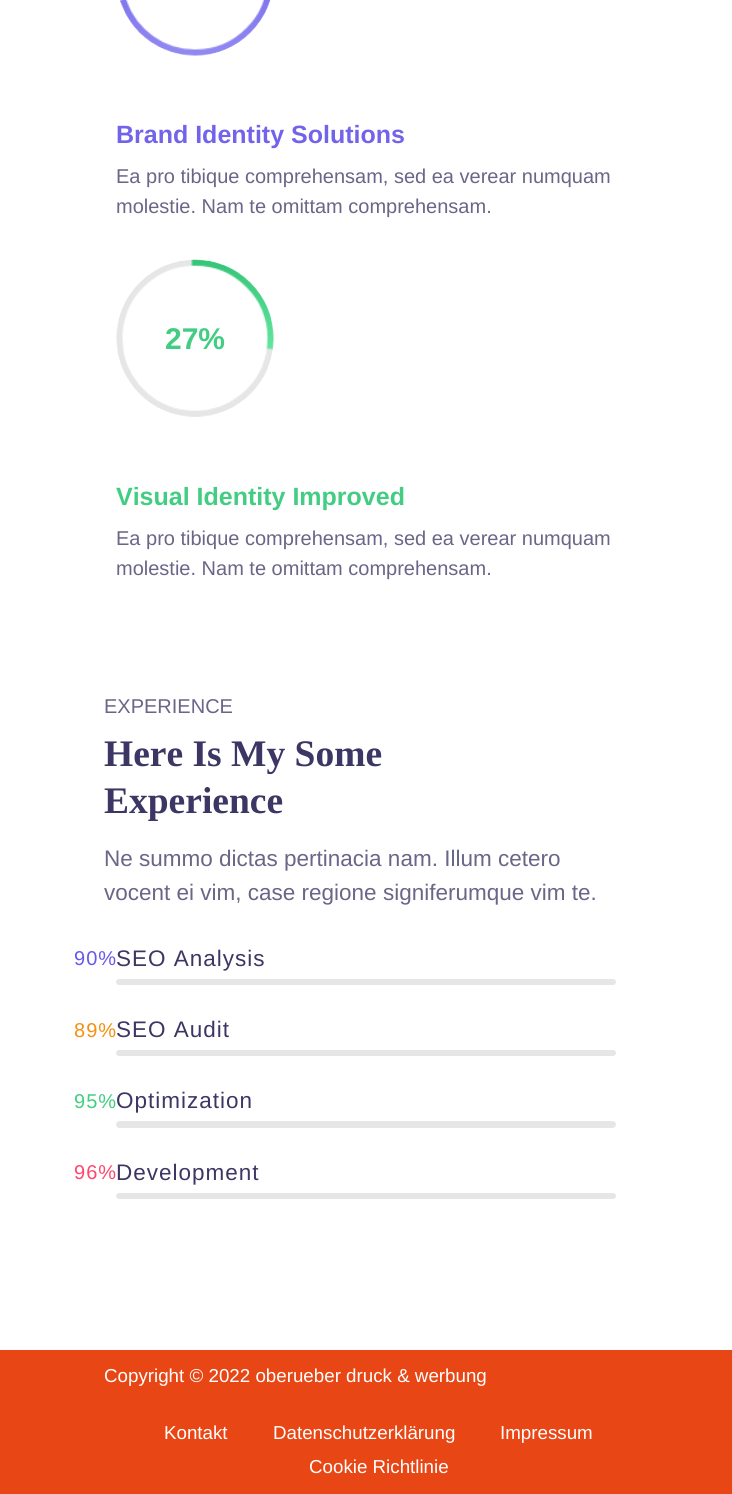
import math
import cairo

surface = cairo.ImageSurface(cairo.FORMAT_RGB24, 732, 1494)
c = cairo.Context(surface)
options = cairo.FontOptions()
options.set_hint_metrics(cairo.HINT_METRICS_OFF)
options.set_hint_style(cairo.HINT_STYLE_NONE)
c.set_font_options(options)
c.set_miter_limit(4)
def C(code):
 c.set_source_rgb(*(v / 255 for v in bytes.fromhex(code[-6:])))
def F(family, size, italic, bold):
 c.select_font_face(family, cairo.FONT_SLANT_ITALIC if italic else cairo.FONT_SLANT_NORMAL, cairo.FONT_WEIGHT_BOLD if bold else cairo.FONT_WEIGHT_NORMAL)
 c.set_font_size(size)
def T(x, y, s):
 c.move_to(x, y)
 c.show_text(s)
def L(x, y, s, letter, word):
 c.move_to(x, y)
 for ch in s:
  c.show_text(ch)
  c.rel_move_to(letter + word * (ch == ' '), 0)
def R(x, y, w, h):
 c.rectangle(x, y, w, h)
 c.fill()
def Q(x, y, w, h, r):
 c.new_sub_path()
 for i, (u, v) in enumerate([(x + w - r, y + h - r), (x + r, y + h - r), (x + r, y + r), (x + w - r, y + r)]):
  c.arc(u, v, r, i * math.pi / 2, (i + 1) * math.pi / 2)
 c.close_path()
def I(path, x, y, w, h):
 c.save()
 c.set_source_surface(cairo.ImageSurface.create_from_png(path), x, y)
 c.rectangle(x, y, w, h)
 c.fill()
 c.restore()
C('ffffff')
c.paint()
I('1.png',120,0,151,56)
F('Liberation Sans',25,0,1)
C('7164ea')
T(116,143,'Brand Identity Solutions')
F('Liberation Sans',20,0,0)
C('696687')
T(116,183,'Ea pro tibique comprehensam, sed ea verear numquam')
T(116,213,'molestie. Nam te omittam comprehensam.')
I('2.png',116,259,158,158)
F('Liberation Sans',30,0,1)
C('42cd83')
T(165,349,'27%')
F('Liberation Sans',25,0,1)
T(116,505,'Visual Identity Improved')
F('Liberation Sans',20,0,0)
C('696687')
T(116,545,'Ea pro tibique comprehensam, sed ea verear numquam')
T(116,575,'molestie. Nam te omittam comprehensam.')
T(104,713,'EXPERIENCE')
F('Liberation Serif',37.5,0,1)
C('3b3663')
T(104,766,'Here Is My Some')
T(104,813,'Experience')
F('Liberation Sans',22.5,0,0)
C('696687')
T(104,866,'Ne summo dictas pertinacia nam. Illum cetero')
T(104,900,'vocent ei vim, case regione signiferumque vim te.')
C('e6e6e7')
Q(116,979,500,6,3)
c.fill()
F('Liberation Sans',20,0,0)
C('6759e8')
L(74,965,'90%',1,0)
F('Liberation Sans',22.5,0,0)
C('3b3663')
L(116,966,'SEO Analysis',1,0)
C('e6e6e7')
Q(116,1050,500,6,3)
c.fill()
F('Liberation Sans',20,0,0)
C('f29111')
L(74,1037,'89%',1,0)
F('Liberation Sans',22.5,0,0)
C('3b3663')
L(116,1037,'SEO Audit',1,0)
C('e6e6e7')
Q(116,1121,500,7,3.5)
c.fill()
F('Liberation Sans',20,0,0)
C('42cd83')
L(74,1108,'95%',1,0)
F('Liberation Sans',22.5,0,0)
C('3b3663')
L(116,1108,'Optimization',1,0)
C('e6e6e7')
Q(116,1193,500,6,3)
c.fill()
F('Liberation Sans',20,0,0)
C('fe466f')
L(74,1179,'96%',1,0)
F('Liberation Sans',22.5,0,0)
C('3b3663')
L(116,1180,'Development',1,0)
C('e84614')
R(0,1350,732,144)
F('Liberation Sans',18.75,0,0)
C('ffffff')
T(104,1382,'Copyright © 2022 oberueber druck & werbung')
T(164,1439,'Kontakt')
T(273,1439,'Datenschutzerklärung')
T(500,1439,'Impressum')
T(309,1473,'Cookie Richtlinie')
surface.write_to_png('o.png')
